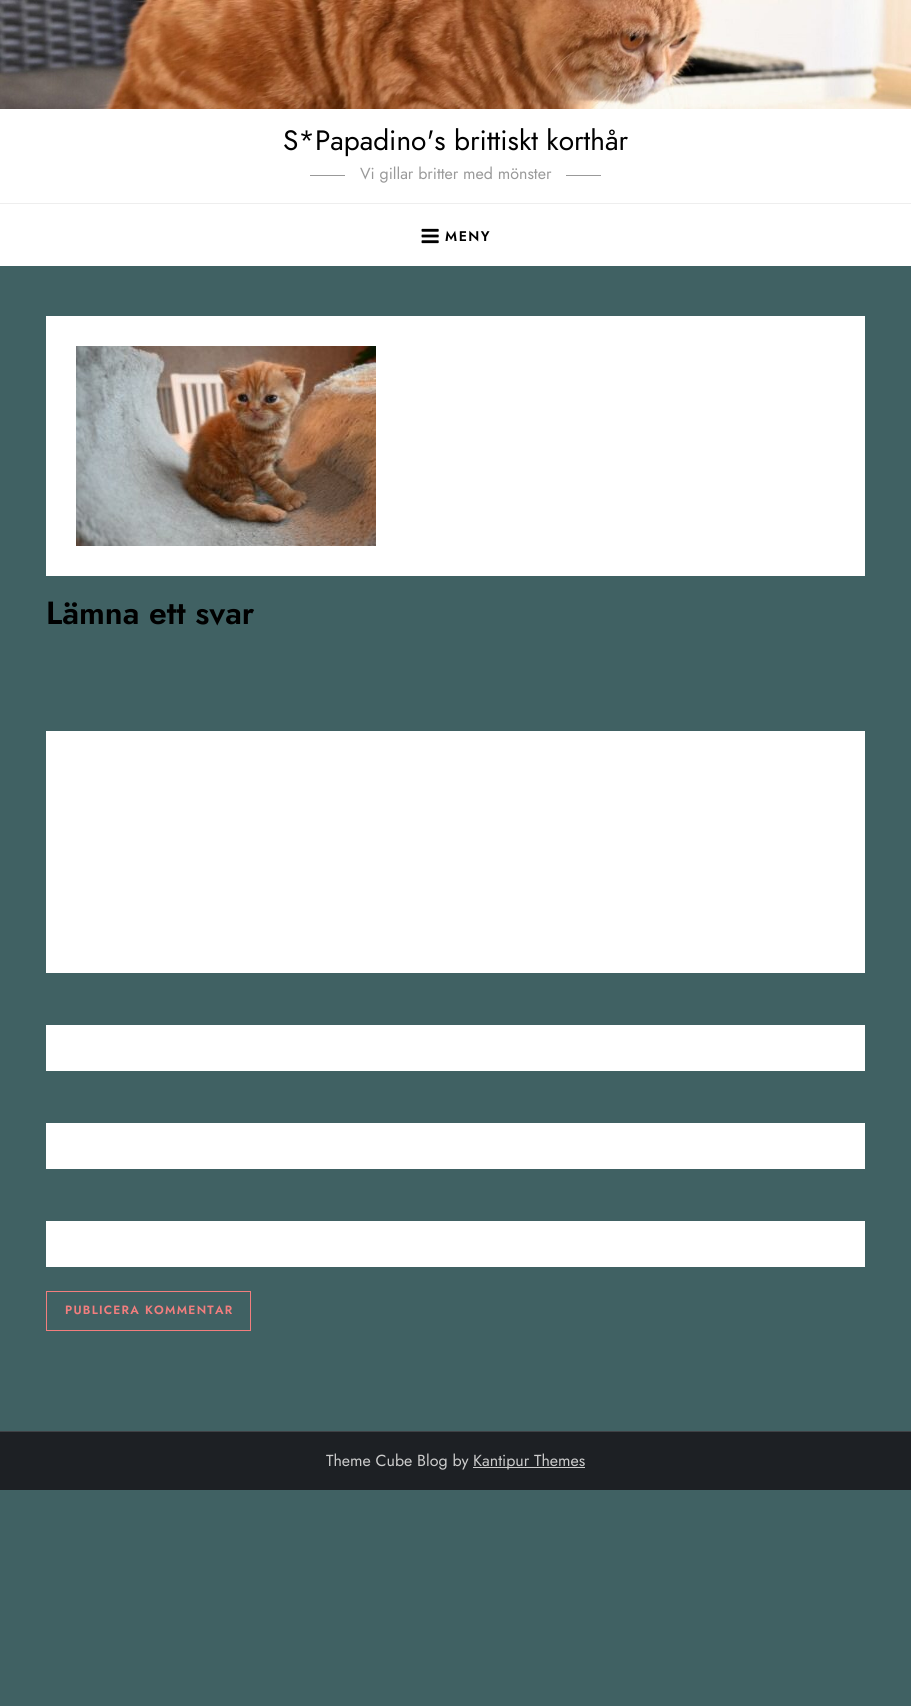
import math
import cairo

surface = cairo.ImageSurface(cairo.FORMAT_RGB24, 911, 1706)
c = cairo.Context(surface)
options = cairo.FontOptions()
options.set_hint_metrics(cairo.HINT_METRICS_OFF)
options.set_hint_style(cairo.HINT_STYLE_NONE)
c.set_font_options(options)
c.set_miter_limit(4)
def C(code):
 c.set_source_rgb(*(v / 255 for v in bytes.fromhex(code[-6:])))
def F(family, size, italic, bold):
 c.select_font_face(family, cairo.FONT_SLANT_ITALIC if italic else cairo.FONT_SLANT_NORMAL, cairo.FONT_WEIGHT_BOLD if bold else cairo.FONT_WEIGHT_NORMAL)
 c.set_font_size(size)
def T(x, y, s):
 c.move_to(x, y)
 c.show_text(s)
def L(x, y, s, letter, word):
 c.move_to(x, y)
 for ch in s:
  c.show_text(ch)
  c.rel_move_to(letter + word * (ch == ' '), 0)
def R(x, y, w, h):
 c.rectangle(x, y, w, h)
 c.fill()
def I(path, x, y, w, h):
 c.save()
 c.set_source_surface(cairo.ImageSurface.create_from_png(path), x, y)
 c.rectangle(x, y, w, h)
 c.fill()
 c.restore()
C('406163')
c.paint()
I('1.png',0,0,911,109)
C('ffffff')
R(0,109,911,157)
F('Jost',28,0,0)
C('000000')
T(283,150,'S*Papadino\'s brittiskt korthår')
C('999999')
R(310,175,35,1)
F('Jost',16,0,0)
T(360,179,'Vi gillar britter med mönster')
R(566,175,35,1)
C('eeeeee')
R(0,203,911,1)
I('2.png',421,228,18,16)
F('Jost SemiBold',14,0,0)
C('000000')
L(445,241,'MENY',1.5,0)
C('ffffff')
R(46,316,819,260)
I('3.png',76,346,300,200)
F('Jost SemiBold',32,0,0)
C('000000')
T(46,624,'Lämna ett svar')
C('ffffff')
R(46,731,819,242)
R(46,1025,819,46)
R(46,1123,819,46)
R(46,1221,819,46)
c.rectangle(46.5,1291.5,204,39)
C('f37e7e')
c.set_line_width(1)
c.stroke()
F('Jost SemiBold',12,0,0)
L(65,1314,'PUBLICERA KOMMENTAR',1.25,0)
C('1d2024')
R(0,1432,911,58)
C('3f4145')
R(0,1431,911,1)
F('Jost',16,0,0)
C('cccccc')
T(326,1466,'Theme Cube Blog by')
R(473,1467,112,1)
T(473,1466,'Kantipur Themes')
surface.write_to_png('o.png')
